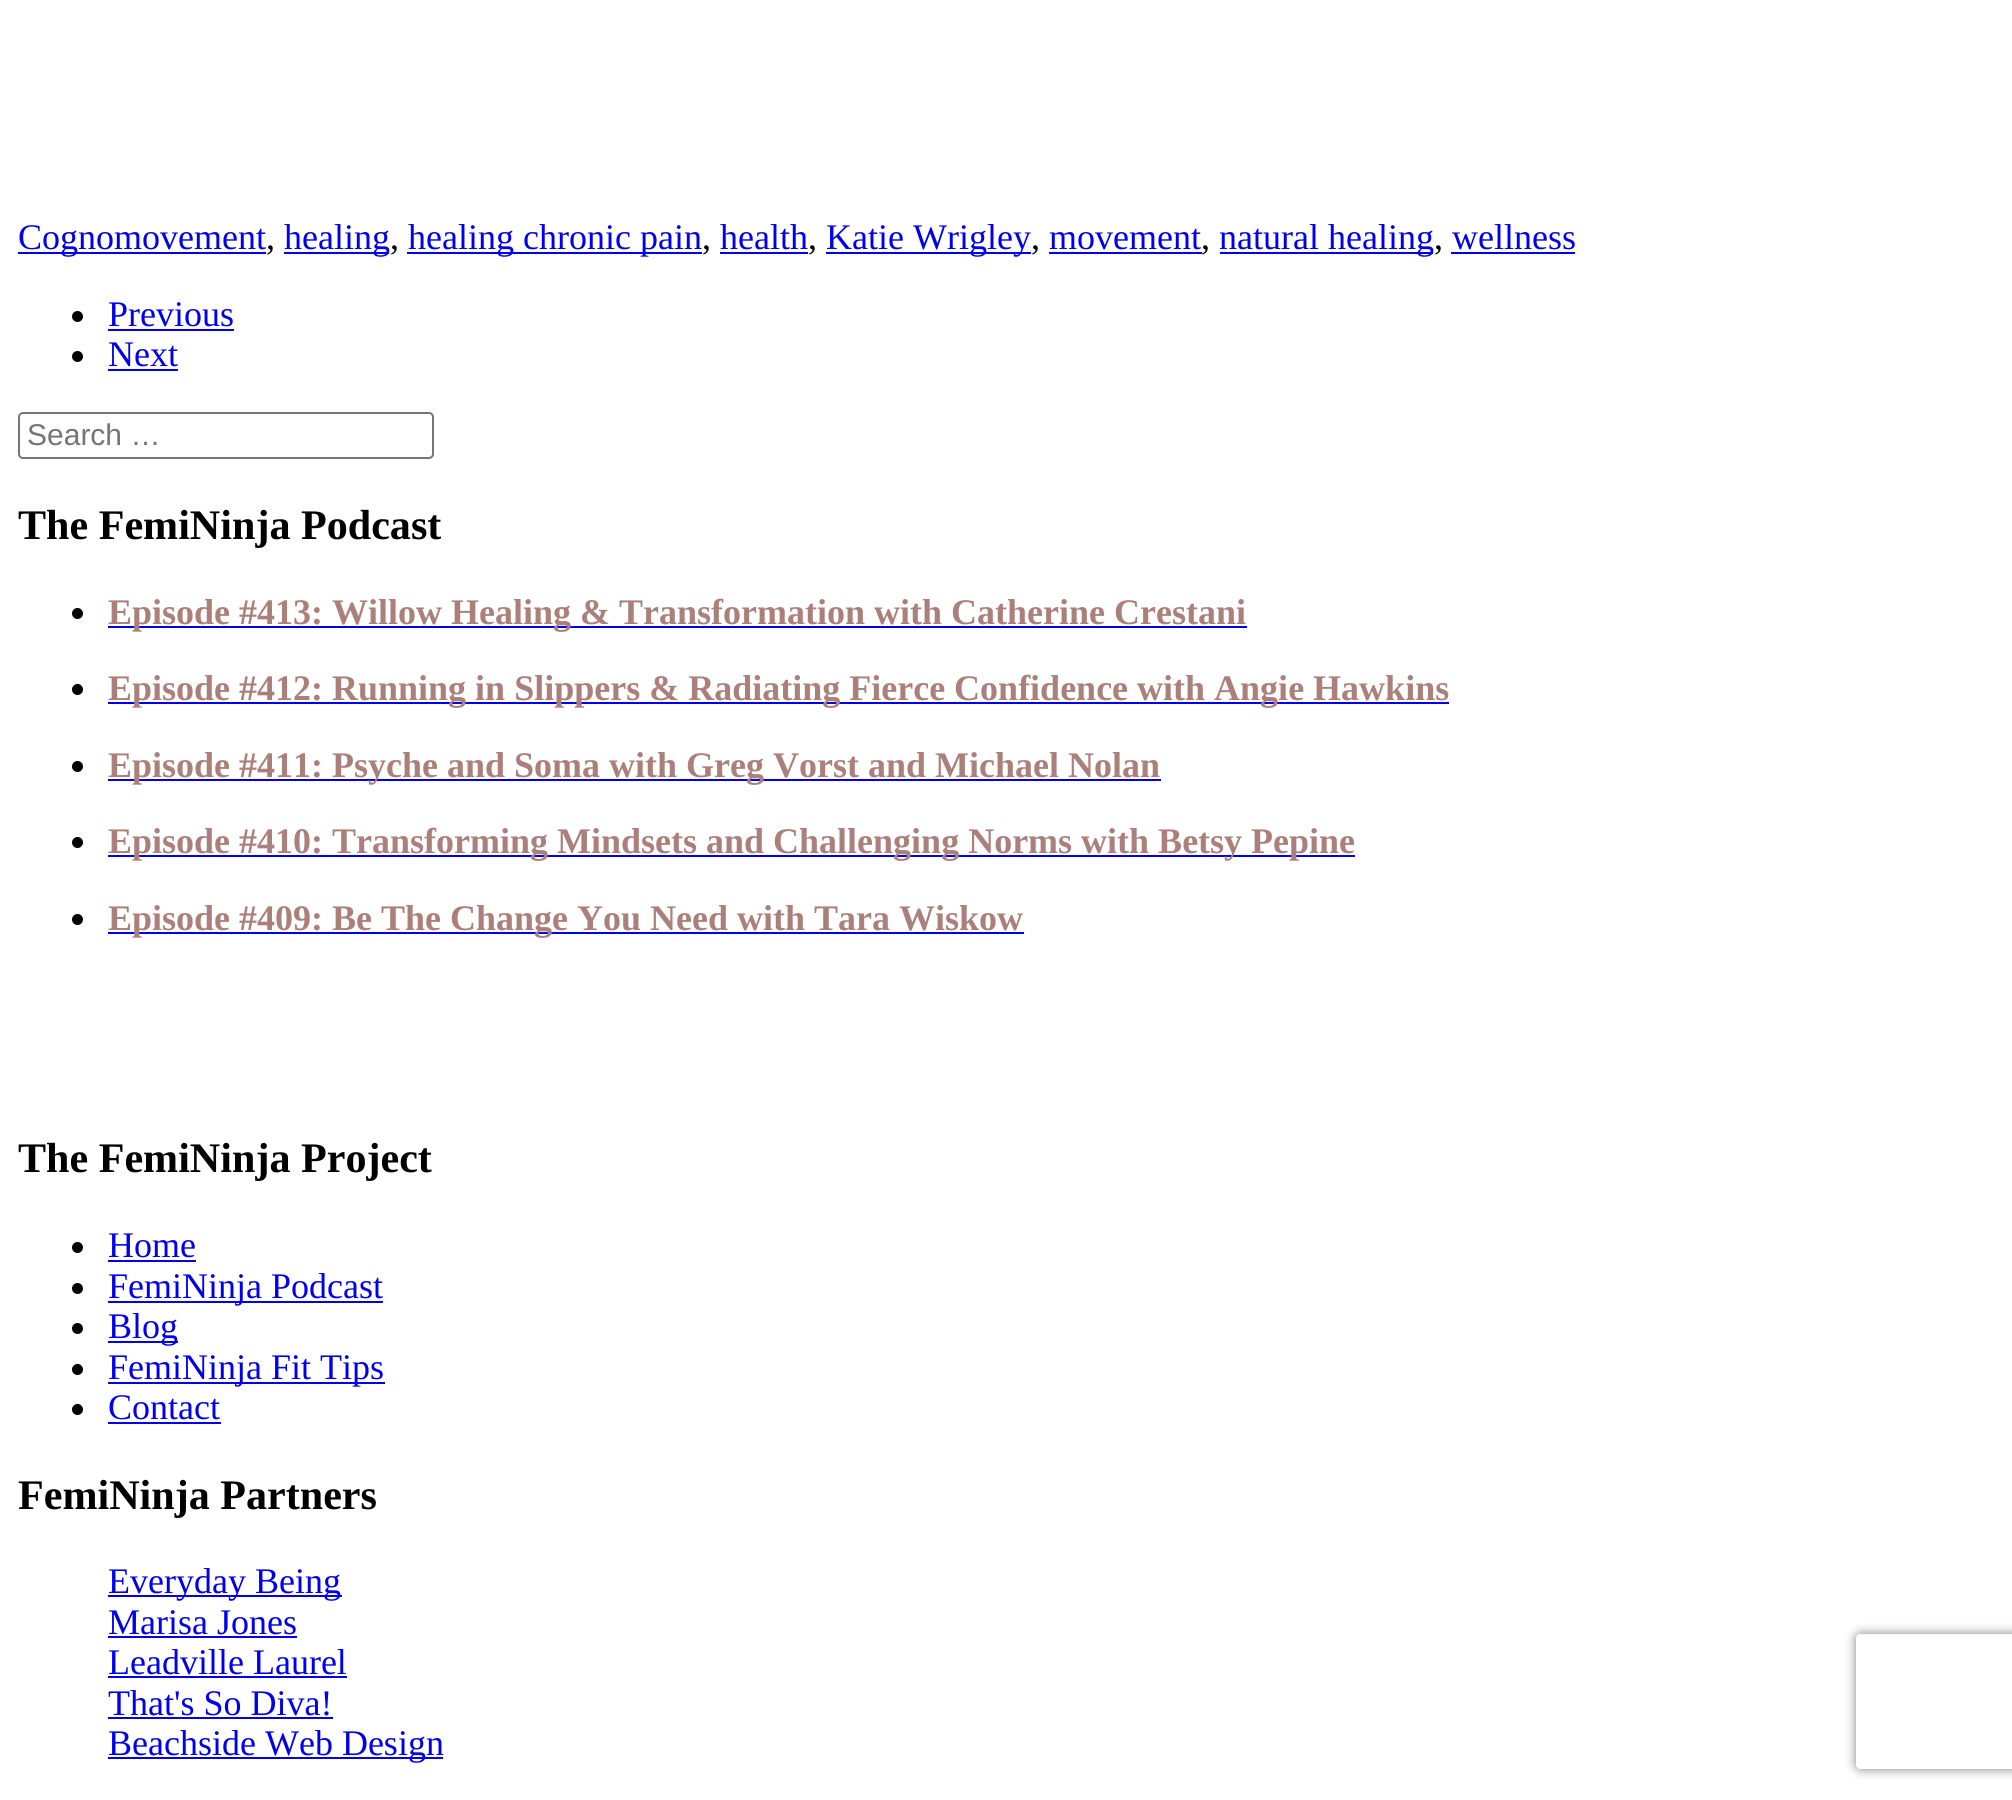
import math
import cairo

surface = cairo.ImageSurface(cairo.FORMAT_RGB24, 2012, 1800)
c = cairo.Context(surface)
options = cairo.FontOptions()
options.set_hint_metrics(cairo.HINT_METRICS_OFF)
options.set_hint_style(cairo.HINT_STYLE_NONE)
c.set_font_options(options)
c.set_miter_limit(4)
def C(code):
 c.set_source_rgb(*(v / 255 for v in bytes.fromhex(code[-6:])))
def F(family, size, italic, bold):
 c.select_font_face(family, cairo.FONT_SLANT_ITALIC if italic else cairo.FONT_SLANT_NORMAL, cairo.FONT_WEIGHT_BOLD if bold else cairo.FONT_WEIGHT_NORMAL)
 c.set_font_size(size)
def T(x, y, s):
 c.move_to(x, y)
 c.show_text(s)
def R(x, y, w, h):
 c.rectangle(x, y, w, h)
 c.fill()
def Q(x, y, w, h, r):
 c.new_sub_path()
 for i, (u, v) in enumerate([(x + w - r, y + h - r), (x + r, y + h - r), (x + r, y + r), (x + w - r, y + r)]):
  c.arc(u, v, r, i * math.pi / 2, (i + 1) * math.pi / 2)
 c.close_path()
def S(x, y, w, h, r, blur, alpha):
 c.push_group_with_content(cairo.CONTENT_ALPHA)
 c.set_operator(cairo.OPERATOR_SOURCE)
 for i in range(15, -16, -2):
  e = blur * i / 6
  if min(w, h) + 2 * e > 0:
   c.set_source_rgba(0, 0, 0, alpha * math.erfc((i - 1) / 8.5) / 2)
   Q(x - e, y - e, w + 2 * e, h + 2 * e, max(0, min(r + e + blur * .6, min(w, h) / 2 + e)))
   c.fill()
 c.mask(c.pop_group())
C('ffffff')
c.paint()
C('0000ee')
R(18,252,248,2)
F('Liberation Serif',36,0,0)
T(18,249,'Cognomovement')
C('000000')
T(266,249,',')
C('0000ee')
R(284,252,105,2)
T(284,249,'healing')
C('000000')
T(390,249,',')
C('0000ee')
R(407,252,295,2)
T(408,249,'healing chronic pain')
C('000000')
T(702,249,',')
C('0000ee')
T(720,249,'health')
R(720,252,88,2)
C('000000')
T(808,249,',')
C('0000ee')
R(826,252,205,2)
T(826,249,'Katie Wrigley')
C('000000')
T(1031,249,',')
C('0000ee')
T(1049,249,'movement')
R(1049,252,153,2)
C('000000')
T(1201,249,',')
C('0000ee')
R(1220,252,213,2)
T(1219,249,'natural healing')
C('000000')
T(1434,249,',')
C('0000ee')
T(1452,249,'wellness')
R(1451,252,124,2)
C('000000')
c.new_path()
c.arc(77.5,316.5,5.5,0,2 * math.pi)
c.fill()
C('0000ee')
T(108,326,'Previous')
R(108,329,126,2)
C('000000')
c.new_path()
c.arc(77.5,356.5,5.5,0,2 * math.pi)
c.fill()
C('0000ee')
T(108,366,'Next')
R(108,369,70,2)
Q(19,413,414,45,4)
C('767676')
c.stroke()
F('Liberation Sans',30,0,0)
C('757575')
T(27,445,'Search …')
F('Liberation Serif',42.1,0,1)
C('000000')
T(18,539,'The FemiNinja Podcast')
c.new_path()
c.arc(77.5,613.5,5.5,0,2 * math.pi)
c.fill()
C('0000ee')
R(108,626,1139,2)
F('Liberation Serif',36,0,1)
C('ab807b')
T(108,624,'Episode #413: Willow Healing & Transformation with Catherine Crestani')
C('000000')
c.new_path()
c.arc(77.5,689.5,5.5,0,2 * math.pi)
c.fill()
C('0000ee')
R(108,702,1341,2)
C('ab807b')
T(108,700,'Episode #412: Running in Slippers & Radiating Fierce Confidence with Angie Hawkins')
C('000000')
c.new_path()
c.arc(77.5,766.5,5.5,0,2 * math.pi)
c.fill()
C('0000ee')
R(108,779,1053,2)
C('ab807b')
T(108,777,'Episode #411: Psyche and Soma with Greg Vorst and Michael Nolan')
C('000000')
c.new_path()
c.arc(77.5,842.5,5.5,0,2 * math.pi)
c.fill()
C('0000ee')
R(108,855,1247,2)
C('ab807b')
T(108,853,'Episode #410: Transforming Mindsets and Challenging Norms with Betsy Pepine')
C('000000')
c.new_path()
c.arc(77.5,919.5,5.5,0,2 * math.pi)
c.fill()
C('0000ee')
R(108,932,916,2)
C('ab807b')
T(108,930,'Episode #409: Be The Change You Need with Tara Wiskow')
F('Liberation Serif',42.1,0,1)
C('000000')
T(18,1172,'The FemiNinja Project')
c.new_path()
c.arc(77.5,1247.5,5.5,0,2 * math.pi)
c.fill()
F('Liberation Serif',36,0,0)
C('0000ee')
T(108,1257,'Home')
R(108,1260,88,2)
C('000000')
c.new_path()
c.arc(77.5,1288.5,5.5,0,2 * math.pi)
c.fill()
C('0000ee')
R(108,1301,275,2)
T(108,1298,'FemiNinja Podcast')
C('000000')
c.new_path()
c.arc(77.5,1328.5,5.5,0,2 * math.pi)
c.fill()
C('0000ee')
R(108,1341,70,2)
T(108,1338,'Blog')
C('000000')
c.new_path()
c.arc(77.5,1369.5,5.5,0,2 * math.pi)
c.fill()
C('0000ee')
R(108,1382,277,2)
T(108,1379,'FemiNinja Fit Tips')
C('000000')
c.new_path()
c.arc(77.5,1409.5,5.5,0,2 * math.pi)
c.fill()
C('0000ee')
T(108,1419,'Contact')
R(108,1422,113,2)
F('Liberation Serif',42.1,0,1)
C('000000')
T(18,1509,'FemiNinja Partners')
C('0000ee')
R(108,1595,234,2)
F('Liberation Serif',36,0,0)
T(108,1593,'Everyday Being')
T(108,1634,'Marisa Jones')
R(108,1636,189,2)
T(108,1674,'Leadville Laurel')
R(108,1676,239,2)
T(108,1715,'That\'s So Diva!')
R(108,1717,225,2)
R(108,1757,335,2)
T(108,1755,'Beachside Web Design')
c.save()
c.set_fill_rule(cairo.FILL_RULE_EVEN_ODD)
c.new_path()
c.move_to(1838,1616)
c.line_to(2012,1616)
c.line_to(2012,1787)
c.line_to(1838,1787)
c.close_path()
c.move_to(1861,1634)
c.line_to(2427,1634)
c.curve_to(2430,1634,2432,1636,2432,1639)
c.line_to(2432,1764)
c.curve_to(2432,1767,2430,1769,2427,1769)
c.line_to(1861,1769)
c.curve_to(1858,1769,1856,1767,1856,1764)
c.line_to(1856,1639)
c.curve_to(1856,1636,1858,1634,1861,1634)
c.close_path()
c.clip()
C('808080')
S(1856,1634,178,135,5,5.5,1)
c.restore()
surface.write_to_png('o.png')
